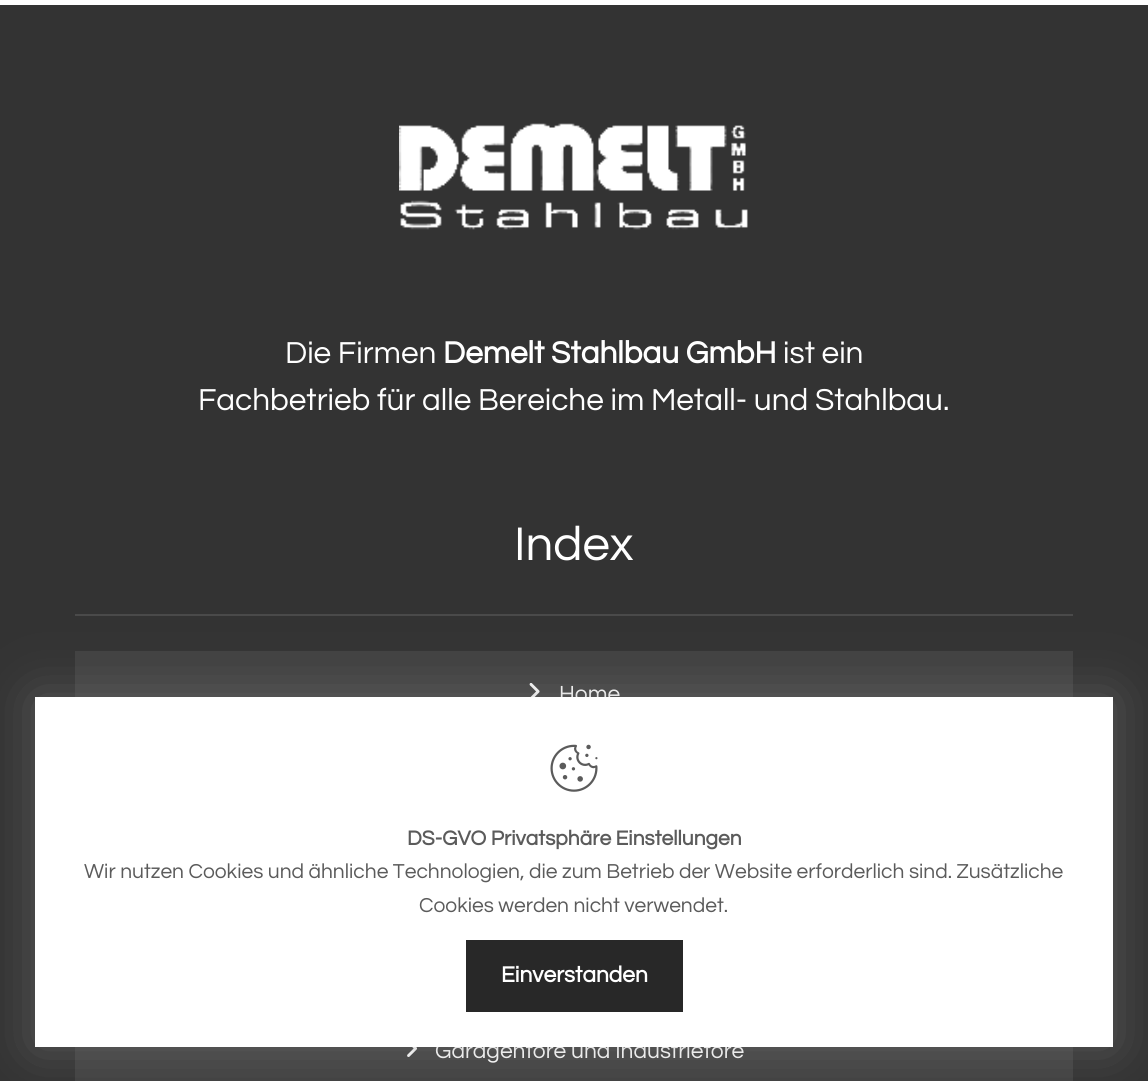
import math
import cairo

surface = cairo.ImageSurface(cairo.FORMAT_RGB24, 1148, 1081)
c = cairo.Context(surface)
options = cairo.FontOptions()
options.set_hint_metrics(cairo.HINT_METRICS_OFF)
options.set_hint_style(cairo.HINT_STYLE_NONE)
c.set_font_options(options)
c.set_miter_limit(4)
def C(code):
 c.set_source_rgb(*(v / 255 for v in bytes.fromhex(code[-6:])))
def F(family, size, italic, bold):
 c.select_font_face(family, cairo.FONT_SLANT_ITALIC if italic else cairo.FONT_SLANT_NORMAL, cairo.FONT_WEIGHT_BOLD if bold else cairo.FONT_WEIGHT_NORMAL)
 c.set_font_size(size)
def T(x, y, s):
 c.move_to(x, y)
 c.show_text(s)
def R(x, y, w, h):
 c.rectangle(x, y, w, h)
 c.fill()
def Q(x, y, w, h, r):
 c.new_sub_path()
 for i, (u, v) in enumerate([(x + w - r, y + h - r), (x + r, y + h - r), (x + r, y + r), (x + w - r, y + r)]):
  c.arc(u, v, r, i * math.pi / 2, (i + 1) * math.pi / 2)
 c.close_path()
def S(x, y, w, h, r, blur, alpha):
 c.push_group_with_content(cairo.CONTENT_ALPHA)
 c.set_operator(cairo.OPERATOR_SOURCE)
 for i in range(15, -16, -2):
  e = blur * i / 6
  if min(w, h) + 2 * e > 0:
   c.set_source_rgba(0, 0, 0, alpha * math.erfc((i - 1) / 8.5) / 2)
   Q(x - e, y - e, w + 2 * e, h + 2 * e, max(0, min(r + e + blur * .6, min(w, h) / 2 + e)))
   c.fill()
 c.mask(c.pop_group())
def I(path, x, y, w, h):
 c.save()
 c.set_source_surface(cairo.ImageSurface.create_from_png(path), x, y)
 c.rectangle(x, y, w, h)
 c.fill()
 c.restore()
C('ffffff')
c.paint()
C('333333')
R(0,5,1148,1076)
I('1.png',399,123,349,107)
F('Questrial',31.5,0,0)
C('ffffff')
T(285,363,'Die Firmen')
F('Questrial',31.5,0,1)
T(443,363,'Demelt Stahlbau GmbH')
F('Questrial',31.5,0,0)
T(783,363,'ist ein')
T(198,410,'Fachbetrieb für alle Bereiche im Metall- und Stahlbau.')
C('4a4a4a')
R(75,614,998,2)
F('Questrial',49,0,0)
C('ffffff')
T(514,560,'Index')
C('414141')
R(75,651,998,46)
I('2.png',529,683,11,14)
F('Questrial',22.75,0,0)
C('ffffff')
T(559,701,'Home')
C('414141')
R(75,1047,998,34)
I('3.png',407,1047,10,10)
C('ffffff')
T(435,1058,'Garagentore und Industrietore')
C('8a8a8a')
S(35,697,1078,350,0,26,.44)
C('ffffff')
R(35,697,1078,350)
I('4.png',550,744,48,48)
F('Questrial',21,0,1)
C('5b5b5b')
T(407,845,'DS-GVO Privatsphäre Einstellungen')
F('Questrial',21,0,0)
T(84,878,'Wir nutzen Cookies und ähnliche Technologien, die zum Betrieb der Website erforderlich sind. Zusätzliche')
T(419,912,'Cookies werden nicht verwendet.')
C('282828')
R(466,940,217,72)
F('Questrial',22.75,0,1)
C('ffffff')
T(501,982,'Einverstanden')
surface.write_to_png('o.png')
